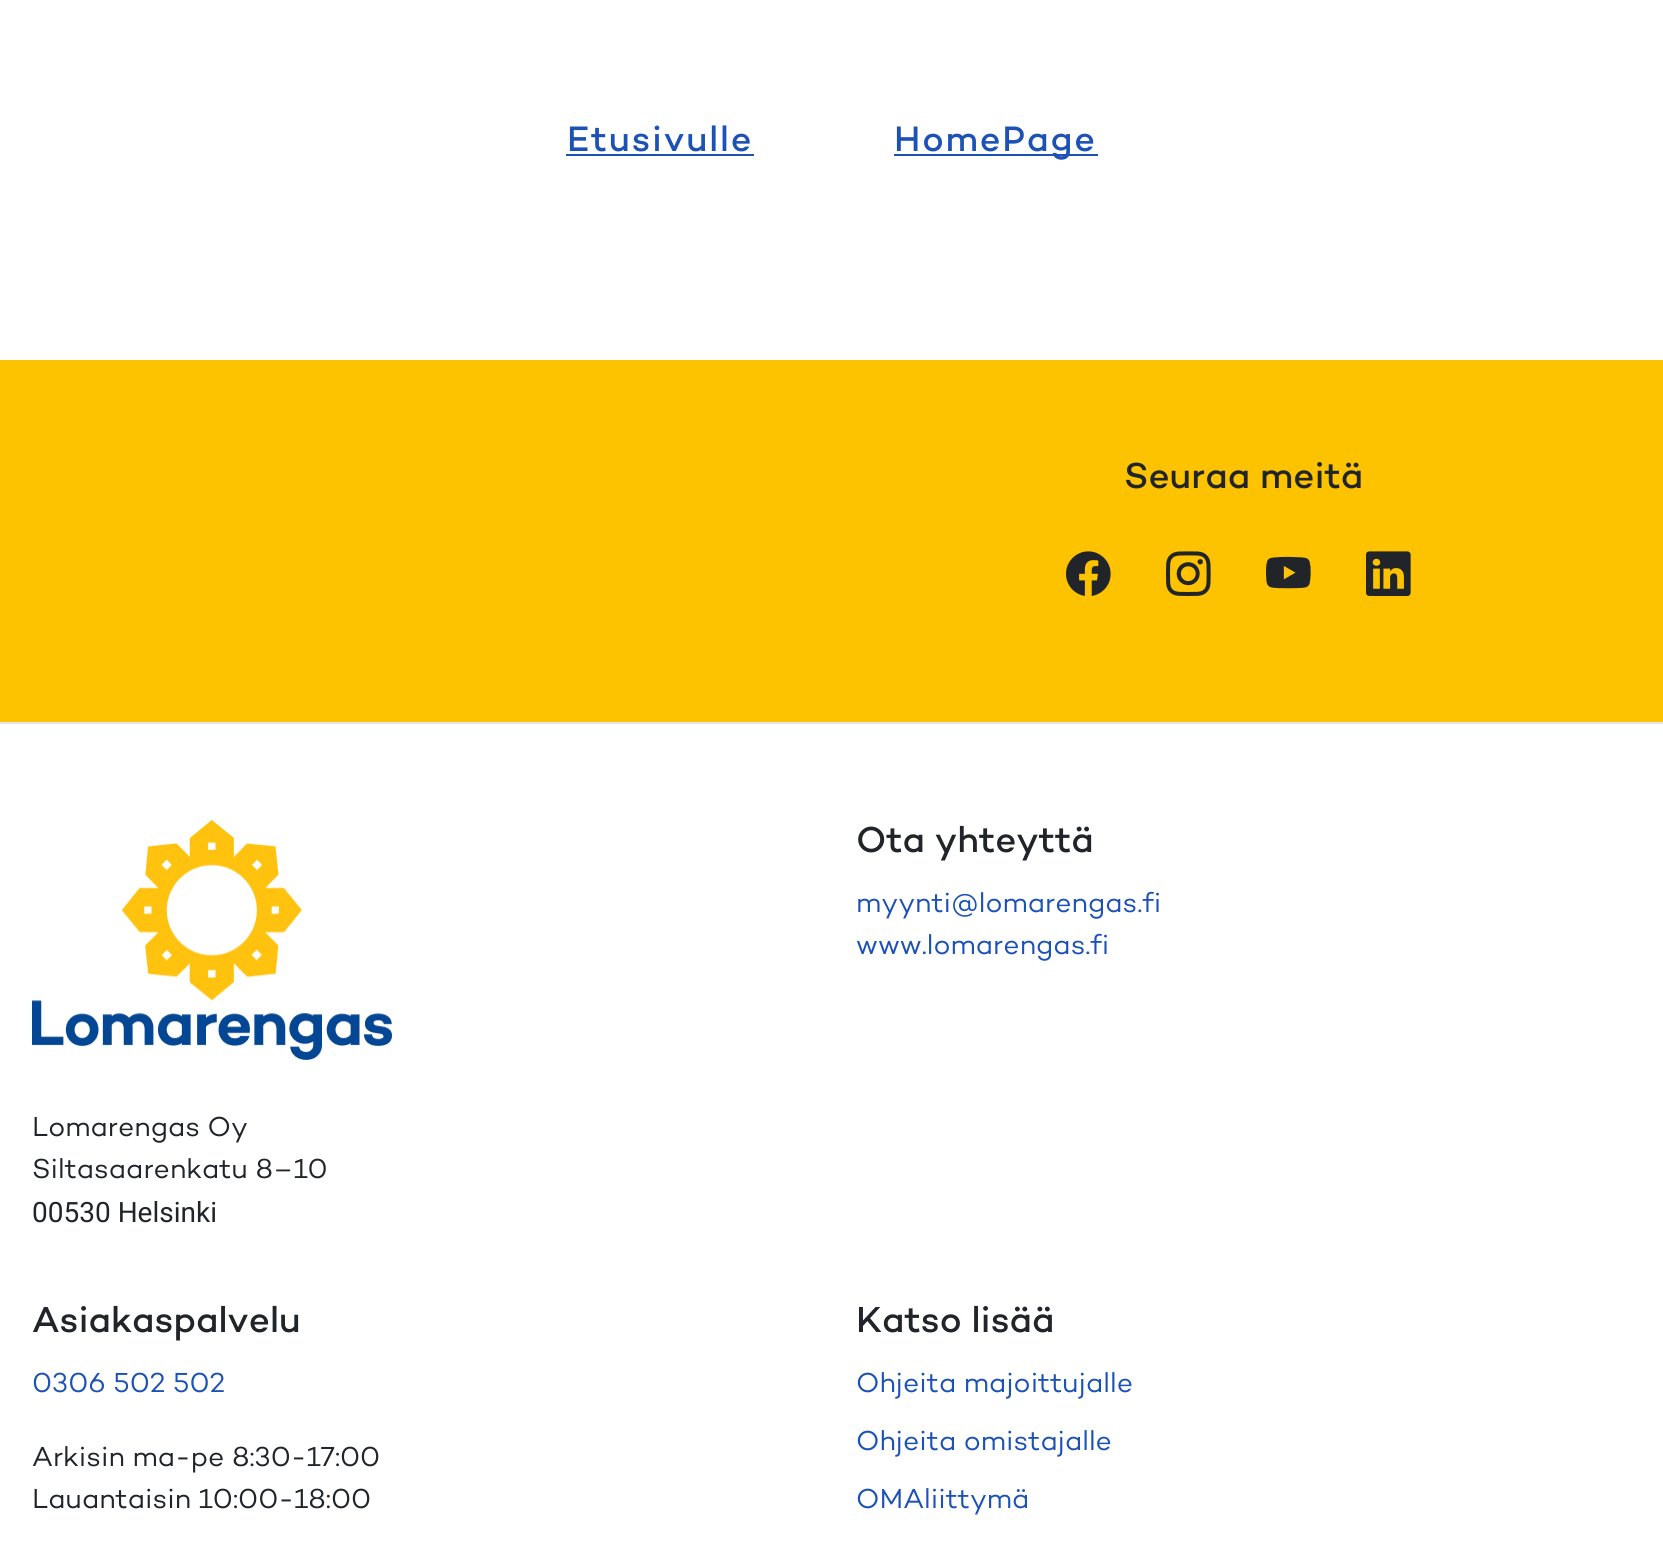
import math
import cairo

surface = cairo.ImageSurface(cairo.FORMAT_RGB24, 1663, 1559)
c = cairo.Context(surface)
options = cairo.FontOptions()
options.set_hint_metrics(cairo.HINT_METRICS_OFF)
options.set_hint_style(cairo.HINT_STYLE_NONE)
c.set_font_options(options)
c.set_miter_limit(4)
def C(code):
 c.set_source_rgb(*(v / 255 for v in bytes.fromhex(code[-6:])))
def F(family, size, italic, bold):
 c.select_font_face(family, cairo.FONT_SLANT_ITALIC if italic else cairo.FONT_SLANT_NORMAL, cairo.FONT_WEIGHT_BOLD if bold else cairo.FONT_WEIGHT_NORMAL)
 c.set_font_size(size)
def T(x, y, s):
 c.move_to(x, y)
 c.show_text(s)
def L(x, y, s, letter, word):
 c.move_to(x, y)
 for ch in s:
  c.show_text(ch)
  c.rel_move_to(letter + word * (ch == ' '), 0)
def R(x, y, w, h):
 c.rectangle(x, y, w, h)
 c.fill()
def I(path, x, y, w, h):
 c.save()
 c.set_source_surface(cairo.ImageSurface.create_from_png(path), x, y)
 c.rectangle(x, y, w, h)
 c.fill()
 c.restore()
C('ffffff')
c.paint()
F('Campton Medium',36,0,0)
C('1c51b6')
L(567,151,'Etusivulle',1.75,0)
R(566,154,188,2)
R(894,154,204,2)
L(894,151,'HomePage',1.75,0)
C('fdc300')
R(0,360,1663,362)
F('Campton Medium',36.75,0,0)
C('212529')
T(1124,488,'Seuraa meitä')
I('1.png',1066,551,45,45)
I('2.png',1166,551,45,45)
I('3.png',1266,556,45,33)
I('4.png',1366,551,45,45)
C('e5e5e5')
R(0,722,1663,2)
C('212529')
T(856,852,'Ota yhteyttä')
F('Campton',28,0,0)
C('1c51b6')
T(856,912,'myynti@lomarengas.fi')
T(856,954,'www.lomarengas.fi')
I('5.png',32,820,360,240)
C('212529')
T(32,1136,'Lomarengas Oy')
T(32,1178,'Siltasaarenkatu 8–10')
F('Roboto',28,0,0)
T(32,1222,'00530 Helsinki')
F('Campton Medium',36.75,0,0)
T(32,1332,'Asiakaspalvelu')
F('Campton',28,0,0)
C('1c51b6')
T(32,1392,'0306 502 502')
C('212529')
T(32,1466,'Arkisin ma-pe 8:30-17:00')
T(32,1508,'Lauantaisin 10:00-18:00')
F('Campton Medium',36.75,0,0)
T(856,1332,'Katso lisää')
F('Campton',28,0,0)
C('1c51b6')
T(856,1392,'Ohjeita majoittujalle')
T(856,1450,'Ohjeita omistajalle')
T(856,1508,'OMAliittymä')
surface.write_to_png('o.png')
